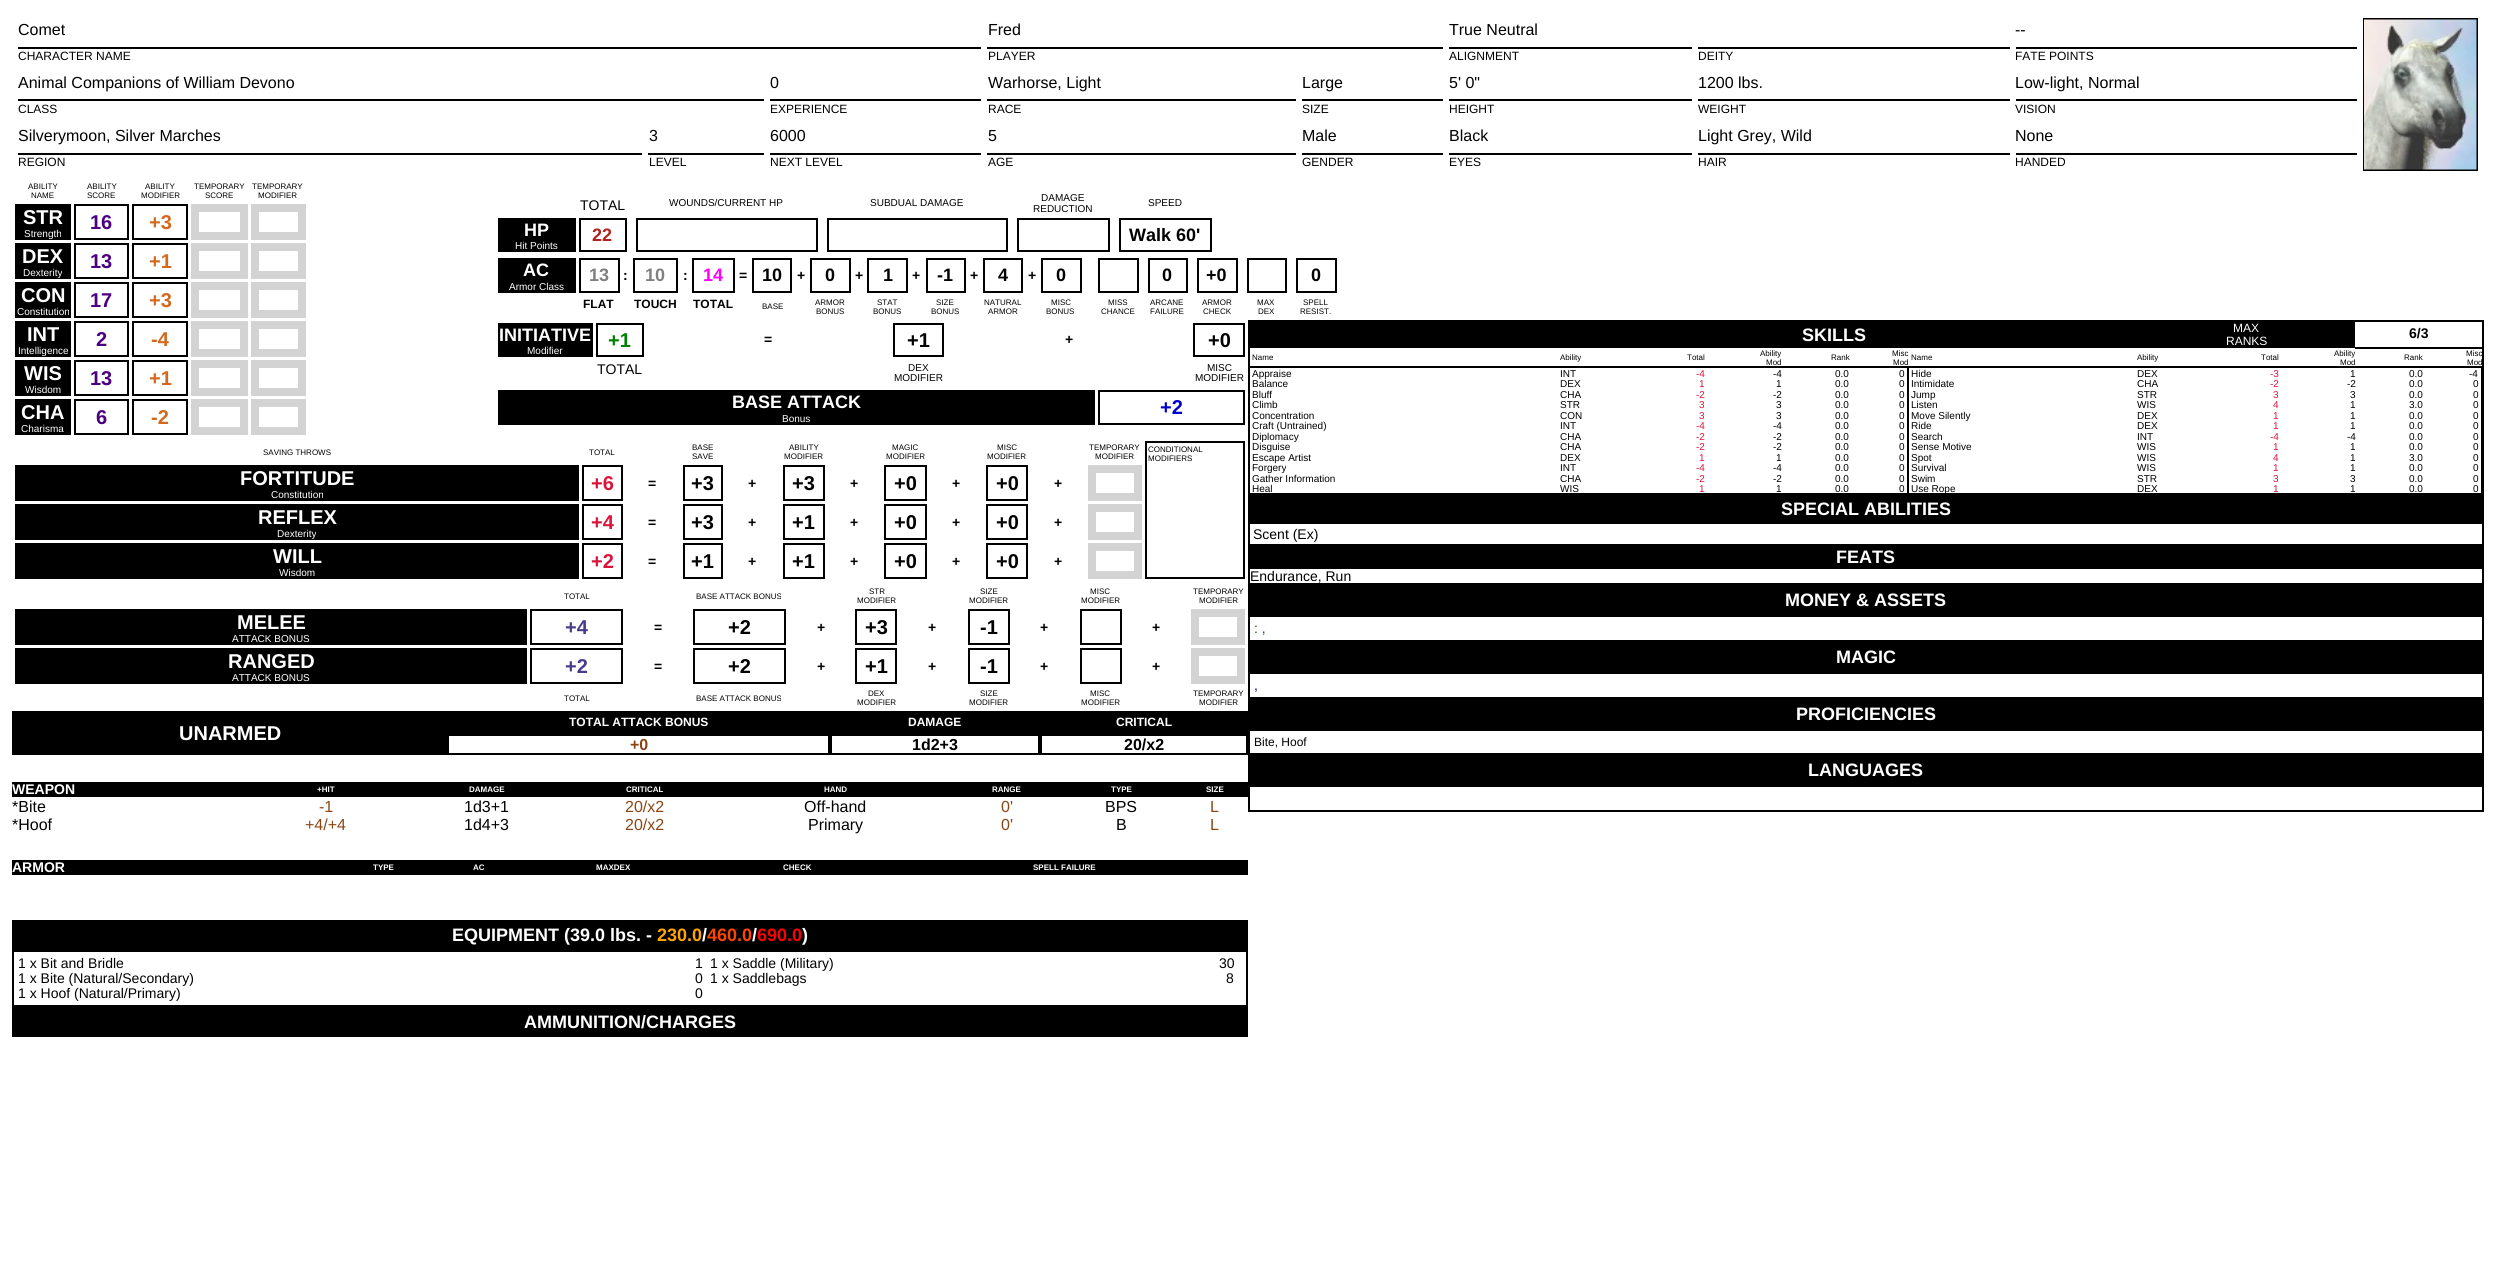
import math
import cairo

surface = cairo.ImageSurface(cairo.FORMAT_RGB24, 2495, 1262)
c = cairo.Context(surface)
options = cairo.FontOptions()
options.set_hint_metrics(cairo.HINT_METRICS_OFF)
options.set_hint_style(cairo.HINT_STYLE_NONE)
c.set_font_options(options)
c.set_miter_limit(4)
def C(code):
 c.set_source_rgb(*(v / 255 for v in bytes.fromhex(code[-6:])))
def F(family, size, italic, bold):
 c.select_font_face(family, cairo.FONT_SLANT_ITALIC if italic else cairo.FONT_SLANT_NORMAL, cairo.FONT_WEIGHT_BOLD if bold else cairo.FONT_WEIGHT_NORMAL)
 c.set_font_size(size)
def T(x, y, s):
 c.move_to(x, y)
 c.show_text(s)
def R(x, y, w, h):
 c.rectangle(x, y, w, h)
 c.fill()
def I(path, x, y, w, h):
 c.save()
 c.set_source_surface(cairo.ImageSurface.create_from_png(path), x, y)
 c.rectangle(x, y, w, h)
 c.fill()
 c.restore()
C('ffffff')
c.paint()
F('Liberation Sans',16,0,0)
C('000000')
T(18,35,'Comet')
T(988,35,'Fred')
T(1449,35,'True Neutral')
T(2015,35,'--')
c.rectangle(2364,19,113,151)
c.stroke()
I('1.png',2364,19,113,151)
R(18,47,963,2)
F('Liberation Sans',12,0,0)
T(18,60,'CHARACTER NAME')
R(987,47,456,2)
T(988,60,'PLAYER')
R(1449,47,243,2)
T(1449,60,'ALIGNMENT')
R(1698,47,312,2)
T(1698,60,'DEITY')
R(2016,47,341,2)
T(2015,60,'FATE POINTS')
F('Liberation Sans',16,0,0)
T(18,88,'Animal Companions of William Devono')
T(770,88,'0')
T(988,88,'Warhorse, Light')
T(1302,88,'Large')
T(1449,88,'5\' 0"')
T(1698,88,'1200 lbs.')
T(2015,88,'Low-light, Normal')
R(18,99,746,2)
F('Liberation Sans',12,0,0)
T(18,113,'CLASS')
R(770,99,211,2)
T(770,113,'EXPERIENCE')
R(987,99,309,2)
T(988,113,'RACE')
R(1302,99,141,2)
T(1302,113,'SIZE')
R(1449,99,243,2)
T(1449,113,'HEIGHT')
R(1698,99,312,2)
T(1698,113,'WEIGHT')
R(2016,99,341,2)
T(2015,113,'VISION')
F('Liberation Sans',16,0,0)
T(18,141,'Silverymoon, Silver Marches')
T(649,141,'3')
T(770,141,'6000')
T(988,141,'5')
T(1302,141,'Male')
T(1449,141,'Black')
T(1698,141,'Light Grey, Wild')
T(2015,141,'None')
R(18,153,624,2)
F('Liberation Sans',12,0,0)
T(18,166,'REGION')
R(648,153,116,2)
T(649,166,'LEVEL')
R(770,153,211,2)
T(770,166,'NEXT LEVEL')
R(987,153,309,2)
T(988,166,'AGE')
R(1302,153,141,2)
T(1302,166,'GENDER')
R(1449,153,243,2)
T(1449,166,'EYES')
R(1698,153,312,2)
T(1698,166,'HAIR')
R(2016,153,341,2)
T(2015,166,'HANDED')
F('Liberation Sans',8,0,0)
T(28,189,'ABILITY')
T(31,198,'NAME')
T(87,189,'ABILITY')
T(87,198,'SCORE')
T(145,189,'ABILITY')
T(141,198,'MODIFIER')
T(194,189,'TEMPORARY')
T(205,198,'SCORE')
T(252,189,'TEMPORARY')
T(258,198,'MODIFIER')
R(15,204,56,36)
F('Liberation Sans',20,0,1)
C('ffffff')
T(23,224,'STR')
F('Liberation Sans',10,0,0)
T(24,237,'Strength')
c.rectangle(75,205,53,34)
C('000000')
c.stroke()
F('Liberation Sans',20,0,1)
C('4b0082')
T(90,229,'16')
c.rectangle(133,205,54,34)
C('000000')
c.stroke()
C('d2691e')
T(149,229,'+3')
c.rectangle(195,208,49,28)
C('d3d3d3')
c.set_line_width(8)
c.stroke()
c.rectangle(255,208,47,28)
c.stroke()
C('000000')
R(15,243,56,36)
C('ffffff')
T(22,263,'DEX')
F('Liberation Sans',10,0,0)
T(23,276,'Dexterity')
c.rectangle(75,244,53,34)
C('000000')
c.set_line_width(2)
c.stroke()
F('Liberation Sans',20,0,1)
C('4b0082')
T(90,268,'13')
c.rectangle(133,244,54,34)
C('000000')
c.stroke()
C('d2691e')
T(149,268,'+1')
c.rectangle(195,247,49,28)
C('d3d3d3')
c.set_line_width(8)
c.stroke()
c.rectangle(255,247,47,28)
c.stroke()
C('000000')
R(15,282,56,36)
C('ffffff')
T(21,302,'CON')
F('Liberation Sans',10,0,0)
T(17,315,'Constitution')
c.rectangle(75,283,53,34)
C('000000')
c.set_line_width(2)
c.stroke()
F('Liberation Sans',20,0,1)
C('4b0082')
T(90,307,'17')
c.rectangle(133,283,54,34)
C('000000')
c.stroke()
C('d2691e')
T(149,307,'+3')
c.rectangle(195,286,49,28)
C('d3d3d3')
c.set_line_width(8)
c.stroke()
c.rectangle(255,286,47,28)
c.stroke()
C('000000')
R(15,321,56,36)
C('ffffff')
T(27,341,'INT')
F('Liberation Sans',10,0,0)
T(18,354,'Intelligence')
c.rectangle(75,322,53,34)
C('000000')
c.set_line_width(2)
c.stroke()
F('Liberation Sans',20,0,1)
C('4b0082')
T(96,346,'2')
c.rectangle(133,322,54,34)
C('000000')
c.stroke()
C('d2691e')
T(151,346,'-4')
c.rectangle(195,325,49,28)
C('d3d3d3')
c.set_line_width(8)
c.stroke()
c.rectangle(255,325,47,28)
c.stroke()
C('000000')
R(15,360,56,36)
C('ffffff')
T(24,380,'WIS')
F('Liberation Sans',10,0,0)
T(25,393,'Wisdom')
c.rectangle(75,361,53,34)
C('000000')
c.set_line_width(2)
c.stroke()
F('Liberation Sans',20,0,1)
C('4b0082')
T(90,385,'13')
c.rectangle(133,361,54,34)
C('000000')
c.stroke()
C('d2691e')
T(149,385,'+1')
c.rectangle(195,364,49,28)
C('d3d3d3')
c.set_line_width(8)
c.stroke()
c.rectangle(255,364,47,28)
c.stroke()
C('000000')
R(15,399,56,36)
C('ffffff')
T(21,419,'CHA')
F('Liberation Sans',10,0,0)
T(21,432,'Charisma')
c.rectangle(75,400,53,34)
C('000000')
c.set_line_width(2)
c.stroke()
F('Liberation Sans',20,0,1)
C('4b0082')
T(96,424,'6')
c.rectangle(133,400,54,34)
C('000000')
c.stroke()
C('d2691e')
T(151,424,'-2')
c.rectangle(195,403,49,28)
C('d3d3d3')
c.set_line_width(8)
c.stroke()
c.rectangle(255,403,47,28)
c.stroke()
F('Liberation Sans',14,0,0)
C('000000')
T(580,210,'TOTAL')
F('Liberation Sans',10,0,0)
T(669,206,'WOUNDS/CURRENT HP')
T(870,206,'SUBDUAL DAMAGE')
T(1041,201,'DAMAGE')
T(1033,212,'REDUCTION')
T(1148,206,'SPEED')
R(498,218,78,34)
F('Liberation Sans',18,0,1)
C('ffffff')
T(524,236,'HP')
F('Liberation Sans',10,0,0)
T(515,249,'Hit Points')
c.rectangle(580,219,46,32)
C('000000')
c.set_line_width(2)
c.stroke()
F('Liberation Sans',18,0,1)
C('b22222')
T(592,241,'22')
c.rectangle(637,219,180,32)
C('000000')
c.stroke()
c.rectangle(828,219,179,32)
c.stroke()
c.rectangle(1018,219,91,32)
c.stroke()
c.rectangle(1120,219,91,32)
c.stroke()
T(1129,241,'Walk 60\'')
R(498,258,78,35)
C('ffffff')
T(523,276,'AC')
F('Liberation Sans',10,0,0)
T(509,290,'Armor Class')
c.rectangle(580,259,39,33)
C('000000')
c.stroke()
F('Liberation Sans',18,0,1)
C('808080')
T(589,281,'13')
F('Liberation Sans',14,0,1)
C('000000')
T(623,280,':')
c.rectangle(634,259,43,33)
c.stroke()
F('Liberation Sans',18,0,1)
C('808080')
T(645,281,'10')
F('Liberation Sans',14,0,1)
C('000000')
T(683,280,':')
c.rectangle(693,259,41,33)
c.stroke()
F('Liberation Sans',18,0,1)
C('ff00ff')
T(703,281,'14')
F('Liberation Sans',14,0,1)
C('000000')
T(739,280,'=')
c.rectangle(753,259,38,33)
c.stroke()
F('Liberation Sans',18,0,1)
T(762,281,'10')
F('Liberation Sans',14,0,1)
T(797,280,'+')
c.rectangle(811,259,39,33)
c.stroke()
F('Liberation Sans',18,0,1)
T(825,281,'0')
F('Liberation Sans',14,0,1)
T(855,280,'+')
c.rectangle(868,259,39,33)
c.stroke()
F('Liberation Sans',18,0,1)
T(883,281,'1')
F('Liberation Sans',14,0,1)
T(912,280,'+')
c.rectangle(927,259,38,33)
c.stroke()
F('Liberation Sans',18,0,1)
T(937,281,'-1')
F('Liberation Sans',14,0,1)
T(970,280,'+')
c.rectangle(984,259,38,33)
c.stroke()
F('Liberation Sans',18,0,1)
T(998,281,'4')
F('Liberation Sans',14,0,1)
T(1028,280,'+')
c.rectangle(1042,259,39,33)
c.stroke()
F('Liberation Sans',18,0,1)
T(1056,281,'0')
c.rectangle(1099,259,39,33)
c.stroke()
c.rectangle(1149,259,38,33)
c.stroke()
T(1162,281,'0')
c.rectangle(1198,259,39,33)
c.stroke()
T(1206,281,'+0')
c.rectangle(1248,259,38,33)
c.stroke()
c.rectangle(1297,259,39,33)
c.stroke()
T(1311,281,'0')
F('Liberation Sans',12,0,1)
T(583,308,'FLAT')
T(634,308,'TOUCH')
T(693,308,'TOTAL')
F('Liberation Sans',8,0,0)
T(762,309,'BASE')
T(815,305,'ARMOR')
T(816,314,'BONUS')
T(877,305,'STAT')
T(873,314,'BONUS')
T(936,305,'SIZE')
T(931,314,'BONUS')
T(984,305,'NATURAL')
T(988,314,'ARMOR')
T(1051,305,'MISC')
T(1046,314,'BONUS')
T(1108,305,'MISS')
T(1101,314,'CHANCE')
T(1150,305,'ARCANE')
T(1150,314,'FAILURE')
T(1202,305,'ARMOR')
T(1203,314,'CHECK')
T(1257,305,'MAX')
T(1258,314,'DEX')
T(1303,305,'SPELL')
T(1300,314,'RESIST.')
R(498,323,95,34)
F('Liberation Sans',18,0,1)
C('ffffff')
T(499,341,'INITIATIVE')
F('Liberation Sans',10,0,0)
T(527,354,'Modifier')
c.rectangle(597,324,46,32)
C('000000')
c.stroke()
F('Liberation Sans',20,0,1)
C('008000')
T(608,347,'+1')
F('Liberation Sans',14,0,1)
C('000000')
T(764,344,'=')
c.rectangle(894,324,49,32)
c.stroke()
F('Liberation Sans',20,0,1)
T(907,347,'+1')
F('Liberation Sans',14,0,1)
T(1065,344,'+')
c.rectangle(1194,324,50,32)
c.stroke()
F('Liberation Sans',20,0,1)
T(1208,347,'+0')
F('Liberation Sans',14,0,0)
T(597,374,'TOTAL')
F('Liberation Sans',10,0,0)
T(908,371,'DEX')
T(894,381,'MODIFIER')
T(1207,371,'MISC')
T(1195,381,'MODIFIER')
R(498,390,597,35)
F('Liberation Sans',18,0,1)
C('ffffff')
T(732,408,'BASE ATTACK')
F('Liberation Sans',10,0,0)
T(782,422,'Bonus')
c.rectangle(1099,391,145,33)
C('000000')
c.stroke()
F('Liberation Sans',20,0,1)
C('0000cd')
T(1160,414,'+2')
c.rectangle(1249,321,1234,173)
C('000000')
c.stroke()
R(1250,322,1105,26)
F('Liberation Sans',18,0,1)
C('ffffff')
T(1802,341,'SKILLS')
F('Liberation Sans',12,0,0)
T(2233,332,'MAX')
T(2226,345,'RANKS')
C('000000')
R(2355,347,128,2)
F('Liberation Sans',14,0,1)
T(2409,338,'6/3')
R(1250,366,1233,2)
F('Liberation Sans',8,0,0)
T(1252,360,'Name')
T(1560,360,'Ability')
T(1687,360,'Total')
T(1760,356,'Ability')
T(1766,365,'Mod')
T(1831,360,'Rank')
T(1892,356,'Misc')
T(1893,365,'Mod')
T(1911,360,'Name')
T(2137,360,'Ability')
T(2261,360,'Total')
T(2334,356,'Ability')
T(2340,365,'Mod')
T(2404,360,'Rank')
T(2466,356,'Misc')
T(2467,365,'Mod')
F('Liberation Sans',10,0,0)
T(1252,377,'Appraise')
T(1560,377,'INT')
C('dc143c')
T(1696,377,'-4')
C('000000')
T(1773,377,'-4')
T(1835,377,'0.0')
R(1907,368,2,126)
T(1899,377,'0')
T(1911,377,'Hide')
T(2137,377,'DEX')
C('dc143c')
T(2270,377,'-3')
C('000000')
T(2350,377,'1')
T(2409,377,'0.0')
R(2481,368,1,126)
T(2469,377,'-4')
T(1252,387,'Balance')
T(1560,387,'DEX')
C('dc143c')
T(1699,387,'1')
C('000000')
T(1776,387,'1')
T(1835,387,'0.0')
T(1899,387,'0')
T(1911,387,'Intimidate')
T(2137,387,'CHA')
C('dc143c')
T(2270,387,'-2')
C('000000')
T(2347,387,'-2')
T(2409,387,'0.0')
T(2473,387,'0')
T(1252,398,'Bluff')
T(1560,398,'CHA')
C('dc143c')
T(1696,398,'-2')
C('000000')
T(1773,398,'-2')
T(1835,398,'0.0')
T(1899,398,'0')
T(1911,398,'Jump')
T(2137,398,'STR')
C('dc143c')
T(2273,398,'3')
C('000000')
T(2350,398,'3')
T(2409,398,'0.0')
T(2473,398,'0')
T(1252,408,'Climb')
T(1560,408,'STR')
C('dc143c')
T(1699,408,'3')
C('000000')
T(1776,408,'3')
T(1835,408,'0.0')
T(1899,408,'0')
T(1911,408,'Listen')
T(2137,408,'WIS')
C('dc143c')
T(2273,408,'4')
C('000000')
T(2350,408,'1')
T(2409,408,'3.0')
T(2473,408,'0')
T(1252,419,'Concentration')
T(1560,419,'CON')
C('dc143c')
T(1699,419,'3')
C('000000')
T(1776,419,'3')
T(1835,419,'0.0')
T(1899,419,'0')
T(1911,419,'Move Silently')
T(2137,419,'DEX')
C('dc143c')
T(2273,419,'1')
C('000000')
T(2350,419,'1')
T(2409,419,'0.0')
T(2473,419,'0')
T(1252,429,'Craft (Untrained)')
T(1560,429,'INT')
C('dc143c')
T(1696,429,'-4')
C('000000')
T(1773,429,'-4')
T(1835,429,'0.0')
T(1899,429,'0')
T(1911,429,'Ride')
T(2137,429,'DEX')
C('dc143c')
T(2273,429,'1')
C('000000')
T(2350,429,'1')
T(2409,429,'0.0')
T(2473,429,'0')
T(1252,440,'Diplomacy')
T(1560,440,'CHA')
C('dc143c')
T(1696,440,'-2')
C('000000')
T(1773,440,'-2')
T(1835,440,'0.0')
T(1899,440,'0')
T(1911,440,'Search')
T(2137,440,'INT')
C('dc143c')
T(2270,440,'-4')
C('000000')
T(2347,440,'-4')
T(2409,440,'0.0')
T(2473,440,'0')
T(1252,450,'Disguise')
T(1560,450,'CHA')
C('dc143c')
T(1696,450,'-2')
C('000000')
T(1773,450,'-2')
T(1835,450,'0.0')
T(1899,450,'0')
T(1911,450,'Sense Motive')
T(2137,450,'WIS')
C('dc143c')
T(2273,450,'1')
C('000000')
T(2350,450,'1')
T(2409,450,'0.0')
T(2473,450,'0')
T(1252,461,'Escape Artist')
T(1560,461,'DEX')
C('dc143c')
T(1699,461,'1')
C('000000')
T(1776,461,'1')
T(1835,461,'0.0')
T(1899,461,'0')
T(1911,461,'Spot')
T(2137,461,'WIS')
C('dc143c')
T(2273,461,'4')
C('000000')
T(2350,461,'1')
T(2409,461,'3.0')
T(2473,461,'0')
T(1252,471,'Forgery')
T(1560,471,'INT')
C('dc143c')
T(1696,471,'-4')
C('000000')
T(1773,471,'-4')
T(1835,471,'0.0')
T(1899,471,'0')
T(1911,471,'Survival')
T(2137,471,'WIS')
C('dc143c')
T(2273,471,'1')
C('000000')
T(2350,471,'1')
T(2409,471,'0.0')
T(2473,471,'0')
T(1252,482,'Gather Information')
T(1560,482,'CHA')
C('dc143c')
T(1696,482,'-2')
C('000000')
T(1773,482,'-2')
T(1835,482,'0.0')
T(1899,482,'0')
T(1911,482,'Swim')
T(2137,482,'STR')
C('dc143c')
T(2273,482,'3')
C('000000')
T(2350,482,'3')
T(2409,482,'0.0')
T(2473,482,'0')
T(1252,492,'Heal')
T(1560,492,'WIS')
C('dc143c')
T(1699,492,'1')
C('000000')
T(1776,492,'1')
T(1835,492,'0.0')
T(1899,492,'0')
T(1911,492,'Use Rope')
T(2137,492,'DEX')
C('dc143c')
T(2273,492,'1')
C('000000')
T(2350,492,'1')
T(2409,492,'0.0')
T(2473,492,'0')
R(1248,495,1236,27)
F('Liberation Sans',18,0,1)
C('ffffff')
T(1781,515,'SPECIAL ABILITIES')
c.rectangle(1249,523,1234,22)
C('000000')
c.stroke()
F('Liberation Sans',14,0,0)
T(1253,539,'Scent (Ex)')
R(1248,546,1236,21)
F('Liberation Sans',18,0,1)
C('ffffff')
T(1836,563,'FEATS')
c.rectangle(1249,568,1234,16)
C('000000')
c.stroke()
F('Liberation Sans',14,0,0)
T(1250,581,'Endurance, Run')
R(1248,585,1236,30)
F('Liberation Sans',18,0,1)
C('ffffff')
T(1785,606,'MONEY & ASSETS')
c.rectangle(1249,616,1234,25)
C('000000')
c.stroke()
F('Liberation Sans',14,0,0)
C('006400')
T(1254,633,': ,')
C('000000')
R(1248,642,1236,30)
F('Liberation Sans',18,0,1)
C('ffffff')
T(1836,663,'MAGIC')
c.rectangle(1249,673,1234,25)
C('000000')
c.stroke()
F('Liberation Sans',14,0,0)
C('00008b')
T(1254,690,',')
C('000000')
R(1248,699,1236,30)
F('Liberation Sans',18,0,1)
C('ffffff')
T(1796,720,'PROFICIENCIES')
c.rectangle(1249,730,1234,24)
C('000000')
c.stroke()
F('Liberation Sans',12,0,0)
T(1254,746,'Bite, Hoof')
R(1248,755,1236,30)
F('Liberation Sans',18,0,1)
C('ffffff')
T(1808,776,'LANGUAGES')
c.rectangle(1249,786,1234,25)
C('000000')
c.stroke()
F('Liberation Sans',8,0,0)
T(263,455,'SAVING THROWS')
T(589,455,'TOTAL')
T(692,450,'BASE')
T(692,459,'SAVE')
T(789,450,'ABILITY')
T(784,459,'MODIFIER')
T(892,450,'MAGIC')
T(886,459,'MODIFIER')
T(997,450,'MISC')
T(987,459,'MODIFIER')
T(1089,450,'TEMPORARY')
T(1095,459,'MODIFIER')
c.rectangle(1146,442,98,136)
c.stroke()
T(1148,452,'CONDITIONAL')
T(1148,461,'MODIFIERS')
R(15,465,564,36)
F('Liberation Sans',20,0,1)
C('ffffff')
T(240,485,'FORTITUDE')
F('Liberation Sans',10,0,0)
T(271,498,'Constitution')
c.rectangle(583,466,39,34)
C('000000')
c.stroke()
F('Liberation Sans',20,0,1)
C('dc143c')
T(591,490,'+6')
F('Liberation Sans',14,0,1)
C('000000')
T(648,488,'=')
c.rectangle(684,466,38,34)
c.stroke()
F('Liberation Sans',20,0,1)
T(691,490,'+3')
F('Liberation Sans',14,0,1)
T(748,488,'+')
c.rectangle(784,466,40,34)
c.stroke()
F('Liberation Sans',20,0,1)
T(792,490,'+3')
F('Liberation Sans',14,0,1)
T(850,488,'+')
c.rectangle(885,466,41,34)
c.stroke()
F('Liberation Sans',20,0,1)
T(894,490,'+0')
F('Liberation Sans',14,0,1)
T(952,488,'+')
c.rectangle(987,466,40,34)
c.stroke()
F('Liberation Sans',20,0,1)
T(996,490,'+0')
F('Liberation Sans',14,0,1)
T(1054,488,'+')
c.rectangle(1092,469,46,28)
C('d3d3d3')
c.set_line_width(8)
c.stroke()
C('000000')
R(15,504,564,36)
F('Liberation Sans',20,0,1)
C('ffffff')
T(258,524,'REFLEX')
F('Liberation Sans',10,0,0)
T(277,537,'Dexterity')
c.rectangle(583,505,39,34)
C('000000')
c.set_line_width(2)
c.stroke()
F('Liberation Sans',20,0,1)
C('dc143c')
T(591,529,'+4')
F('Liberation Sans',14,0,1)
C('000000')
T(648,527,'=')
c.rectangle(684,505,38,34)
c.stroke()
F('Liberation Sans',20,0,1)
T(691,529,'+3')
F('Liberation Sans',14,0,1)
T(748,527,'+')
c.rectangle(784,505,40,34)
c.stroke()
F('Liberation Sans',20,0,1)
T(792,529,'+1')
F('Liberation Sans',14,0,1)
T(850,527,'+')
c.rectangle(885,505,41,34)
c.stroke()
F('Liberation Sans',20,0,1)
T(894,529,'+0')
F('Liberation Sans',14,0,1)
T(952,527,'+')
c.rectangle(987,505,40,34)
c.stroke()
F('Liberation Sans',20,0,1)
T(996,529,'+0')
F('Liberation Sans',14,0,1)
T(1054,527,'+')
c.rectangle(1092,508,46,28)
C('d3d3d3')
c.set_line_width(8)
c.stroke()
C('000000')
R(15,543,564,36)
F('Liberation Sans',20,0,1)
C('ffffff')
T(273,563,'WILL')
F('Liberation Sans',10,0,0)
T(279,576,'Wisdom')
c.rectangle(583,544,39,34)
C('000000')
c.set_line_width(2)
c.stroke()
F('Liberation Sans',20,0,1)
C('dc143c')
T(591,568,'+2')
F('Liberation Sans',14,0,1)
C('000000')
T(648,566,'=')
c.rectangle(684,544,38,34)
c.stroke()
F('Liberation Sans',20,0,1)
T(691,568,'+1')
F('Liberation Sans',14,0,1)
T(748,566,'+')
c.rectangle(784,544,40,34)
c.stroke()
F('Liberation Sans',20,0,1)
T(792,568,'+1')
F('Liberation Sans',14,0,1)
T(850,566,'+')
c.rectangle(885,544,41,34)
c.stroke()
F('Liberation Sans',20,0,1)
T(894,568,'+0')
F('Liberation Sans',14,0,1)
T(952,566,'+')
c.rectangle(987,544,40,34)
c.stroke()
F('Liberation Sans',20,0,1)
T(996,568,'+0')
F('Liberation Sans',14,0,1)
T(1054,566,'+')
c.rectangle(1092,547,46,28)
C('d3d3d3')
c.set_line_width(8)
c.stroke()
F('Liberation Sans',8,0,0)
C('000000')
T(564,599,'TOTAL')
T(696,599,'BASE ATTACK BONUS')
T(869,594,'STR')
T(857,603,'MODIFIER')
T(980,594,'SIZE')
T(969,603,'MODIFIER')
T(1090,594,'MISC')
T(1081,603,'MODIFIER')
T(1193,594,'TEMPORARY')
T(1199,603,'MODIFIER')
R(15,609,512,36)
F('Liberation Sans',20,0,1)
C('ffffff')
T(237,629,'MELEE')
F('Liberation Sans',10,0,0)
T(232,642,'ATTACK BONUS')
c.rectangle(531,610,91,34)
C('000000')
c.set_line_width(2)
c.stroke()
F('Liberation Sans',20,0,1)
C('483d8b')
T(565,634,'+4')
F('Liberation Sans',14,0,1)
C('000000')
T(654,632,'=')
c.rectangle(694,610,91,34)
c.stroke()
F('Liberation Sans',20,0,1)
T(728,634,'+2')
F('Liberation Sans',14,0,1)
T(817,632,'+')
c.rectangle(856,610,40,34)
c.stroke()
F('Liberation Sans',20,0,1)
T(865,634,'+3')
F('Liberation Sans',14,0,1)
T(928,632,'+')
c.rectangle(969,610,40,34)
c.stroke()
F('Liberation Sans',20,0,1)
T(980,634,'-1')
F('Liberation Sans',14,0,1)
T(1040,632,'+')
c.rectangle(1081,610,40,34)
c.stroke()
T(1152,632,'+')
c.rectangle(1195,613,46,28)
C('d3d3d3')
c.set_line_width(8)
c.stroke()
C('000000')
R(15,648,512,36)
F('Liberation Sans',20,0,1)
C('ffffff')
T(228,668,'RANGED')
F('Liberation Sans',10,0,0)
T(232,681,'ATTACK BONUS')
c.rectangle(531,649,91,34)
C('000000')
c.set_line_width(2)
c.stroke()
F('Liberation Sans',20,0,1)
C('483d8b')
T(565,673,'+2')
F('Liberation Sans',14,0,1)
C('000000')
T(654,671,'=')
c.rectangle(694,649,91,34)
c.stroke()
F('Liberation Sans',20,0,1)
T(728,673,'+2')
F('Liberation Sans',14,0,1)
T(817,671,'+')
c.rectangle(856,649,40,34)
c.stroke()
F('Liberation Sans',20,0,1)
T(865,673,'+1')
F('Liberation Sans',14,0,1)
T(928,671,'+')
c.rectangle(969,649,40,34)
c.stroke()
F('Liberation Sans',20,0,1)
T(980,673,'-1')
F('Liberation Sans',14,0,1)
T(1040,671,'+')
c.rectangle(1081,649,40,34)
c.stroke()
T(1152,671,'+')
c.rectangle(1195,652,46,28)
C('d3d3d3')
c.set_line_width(8)
c.stroke()
F('Liberation Sans',8,0,0)
C('000000')
T(564,701,'TOTAL')
T(696,701,'BASE ATTACK BONUS')
T(868,696,'DEX')
T(857,705,'MODIFIER')
T(980,696,'SIZE')
T(969,705,'MODIFIER')
T(1090,696,'MISC')
T(1081,705,'MODIFIER')
T(1193,696,'TEMPORARY')
T(1199,705,'MODIFIER')
R(447,711,801,23)
F('Liberation Sans',12,0,1)
C('ffffff')
T(569,726,'TOTAL ATTACK BONUS')
T(908,726,'DAMAGE')
T(1116,726,'CRITICAL')
C('000000')
R(12,711,435,44)
F('Liberation Sans',20,0,1)
C('ffffff')
T(179,740,'UNARMED')
c.rectangle(448,735,381,19)
C('000000')
c.set_line_width(2)
c.stroke()
F('Liberation Sans',16,0,1)
C('8b4513')
T(630,750,'+0')
c.rectangle(831,735,208,19)
C('000000')
c.stroke()
T(912,750,'1d2+3')
c.rectangle(1041,735,206,19)
c.stroke()
T(1124,750,'20/x2')
R(12,782,1236,15)
F('Liberation Sans',14,0,1)
C('ffffff')
T(12,794,'WEAPON')
F('Liberation Sans',8,0,1)
T(317,792,'+HIT')
T(469,792,'DAMAGE')
T(626,792,'CRITICAL')
T(824,792,'HAND')
T(992,792,'RANGE')
T(1111,792,'TYPE')
T(1206,792,'SIZE')
F('Liberation Sans',16,0,0)
C('000000')
T(12,812,'*Bite')
C('8b4513')
T(319,812,'-1')
C('000000')
T(464,812,'1d3+1')
C('8b4513')
T(625,812,'20/x2')
C('000000')
T(804,812,'Off-hand')
C('8b4513')
T(1001,812,'0\'')
C('000000')
T(1105,812,'BPS')
C('8b4513')
T(1210,812,'L')
C('000000')
T(12,830,'*Hoof')
C('8b4513')
T(305,830,'+4/+4')
C('000000')
T(464,830,'1d4+3')
C('8b4513')
T(625,830,'20/x2')
C('000000')
T(808,830,'Primary')
C('8b4513')
T(1001,830,'0\'')
C('000000')
T(1116,830,'B')
C('8b4513')
T(1210,830,'L')
C('000000')
R(12,860,1236,15)
F('Liberation Sans',14,0,1)
C('ffffff')
T(12,872,'ARMOR')
F('Liberation Sans',8,0,1)
T(373,870,'TYPE')
T(473,870,'AC')
T(596,870,'MAXDEX')
T(783,870,'CHECK')
T(1033,870,'SPELL FAILURE')
C('000000')
R(12,920,1236,30)
F('Liberation Sans',18,0,1)
C('ffffff')
T(452,941,'EQUIPMENT (39.0 lbs. -')
C('ffa500')
T(657,941,'230.0')
C('ffffff')
T(702,941,'/')
C('ff4500')
T(707,941,'460.0')
C('ffffff')
T(752,941,'/')
C('ff0000')
T(757,941,'690.0')
C('ffffff')
T(802,941,')')
c.rectangle(13,951,1234,55)
C('000000')
c.stroke()
F('Liberation Sans',14,0,0)
T(18,968,'1 x Bit and Bridle')
T(695,968,'1')
T(710,968,'1 x Saddle (Military)')
T(1219,968,'30')
T(18,983,'1 x Bite (Natural/Secondary)')
T(695,983,'0')
T(710,983,'1 x Saddlebags')
T(1226,983,'8')
T(18,998,'1 x Hoof (Natural/Primary)')
T(695,998,'0')
R(12,1007,1236,30)
F('Liberation Sans',18,0,1)
C('ffffff')
T(524,1028,'AMMUNITION/CHARGES')
surface.write_to_png('o.png')
